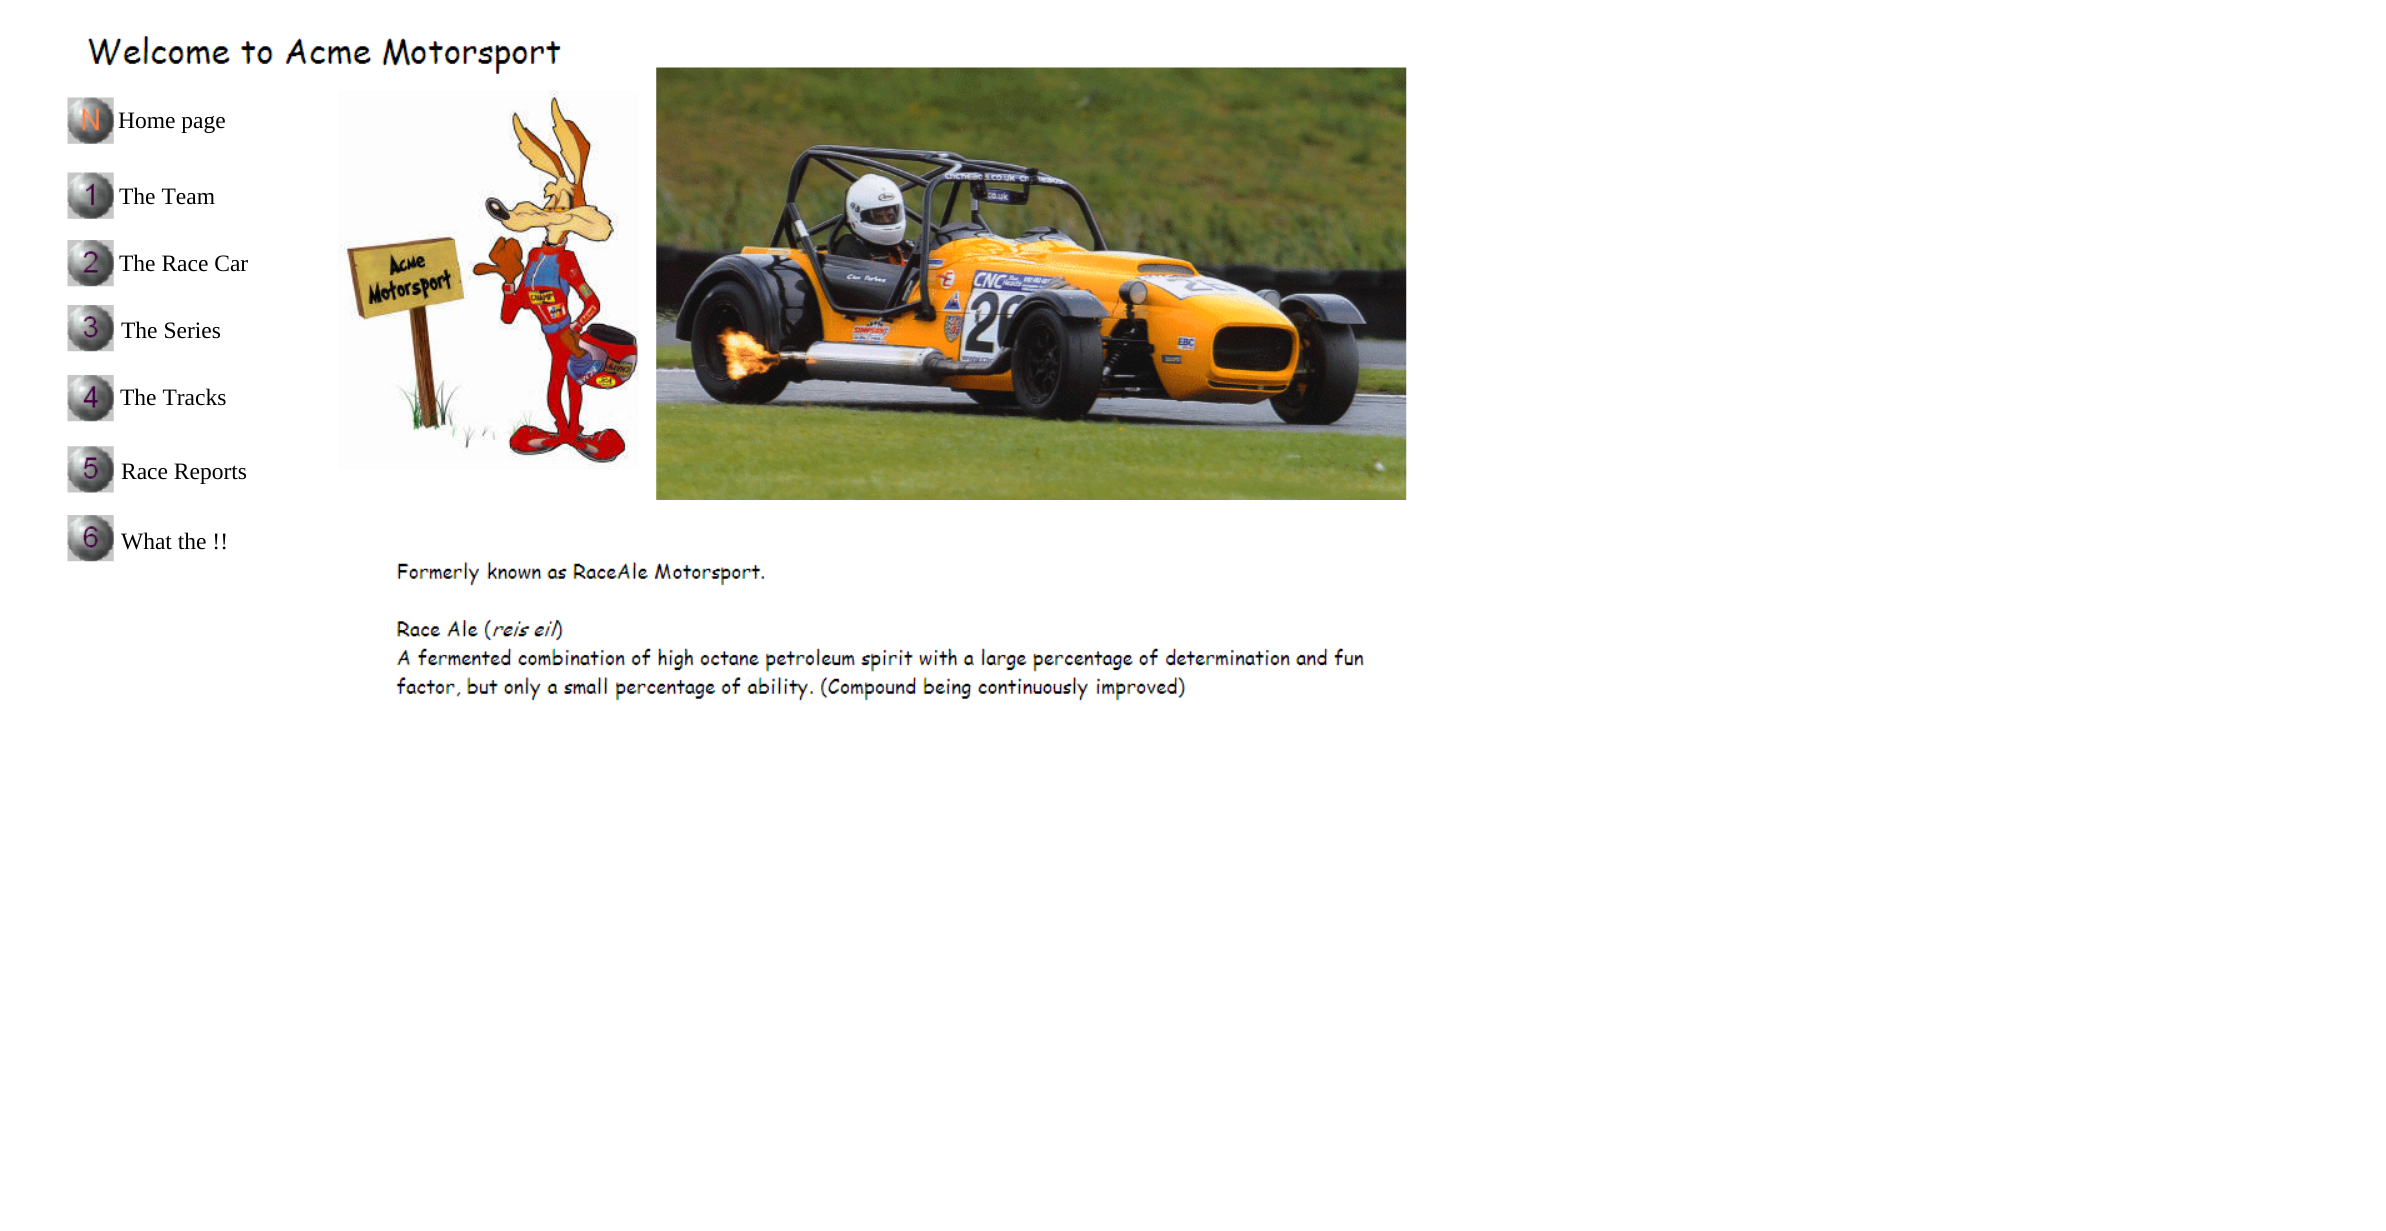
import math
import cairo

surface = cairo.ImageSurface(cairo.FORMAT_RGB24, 2386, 1231)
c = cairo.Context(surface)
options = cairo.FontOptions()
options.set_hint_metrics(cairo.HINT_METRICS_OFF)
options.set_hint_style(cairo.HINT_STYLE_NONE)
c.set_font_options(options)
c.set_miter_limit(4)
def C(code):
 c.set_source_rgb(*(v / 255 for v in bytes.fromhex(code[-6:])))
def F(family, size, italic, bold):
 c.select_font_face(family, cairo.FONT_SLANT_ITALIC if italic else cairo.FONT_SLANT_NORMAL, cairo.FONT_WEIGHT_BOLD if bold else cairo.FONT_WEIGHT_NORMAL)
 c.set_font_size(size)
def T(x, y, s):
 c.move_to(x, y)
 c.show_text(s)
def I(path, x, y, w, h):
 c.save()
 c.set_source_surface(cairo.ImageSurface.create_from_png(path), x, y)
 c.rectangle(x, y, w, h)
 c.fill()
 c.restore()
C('ffffff')
c.paint()
I('1.png',87,36,475,38)
I('2.png',67,97,47,47)
F('Liberation Serif',23.5,0,0)
C('000000')
T(118,128,'Home page')
I('3.png',338,90,301,380)
I('4.png',656,67,751,433)
I('5.png',67,172,47,47)
T(119,204,'The Team')
I('6.png',67,240,47,47)
T(119,271,'The Race Car')
I('7.png',67,305,47,47)
T(121,338,'The Series')
I('8.png',67,375,47,47)
T(120,405,'The Tracks')
I('9.png',67,446,47,47)
T(121,479,'Race Reports')
I('10.png',67,515,47,47)
T(121,549,'What the !!')
I('11.png',396,562,968,139)
surface.write_to_png('o.png')
